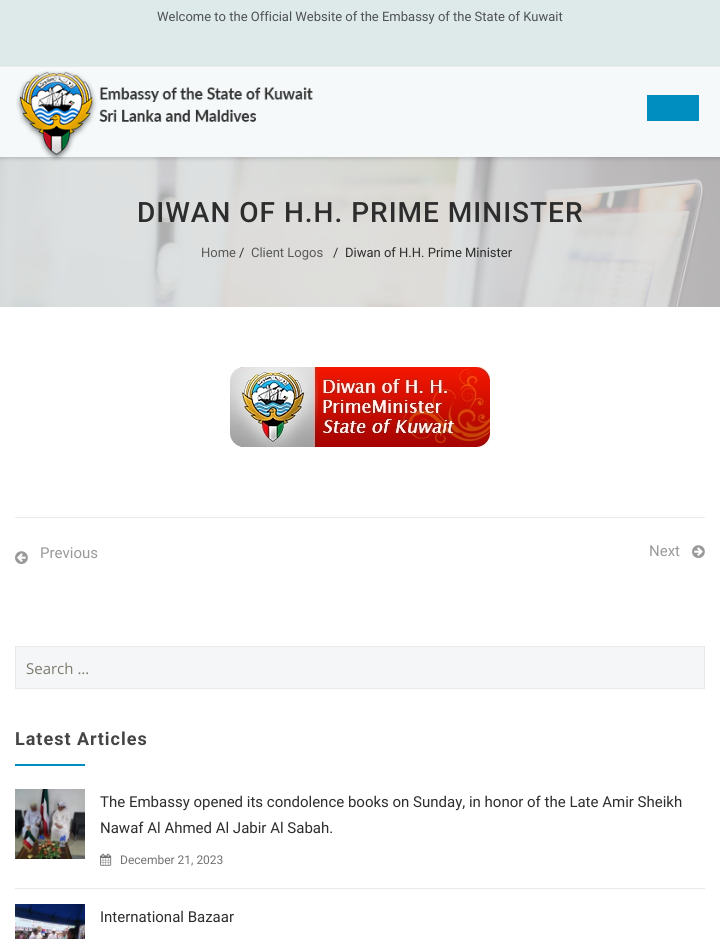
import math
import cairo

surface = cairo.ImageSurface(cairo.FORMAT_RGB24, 720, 939)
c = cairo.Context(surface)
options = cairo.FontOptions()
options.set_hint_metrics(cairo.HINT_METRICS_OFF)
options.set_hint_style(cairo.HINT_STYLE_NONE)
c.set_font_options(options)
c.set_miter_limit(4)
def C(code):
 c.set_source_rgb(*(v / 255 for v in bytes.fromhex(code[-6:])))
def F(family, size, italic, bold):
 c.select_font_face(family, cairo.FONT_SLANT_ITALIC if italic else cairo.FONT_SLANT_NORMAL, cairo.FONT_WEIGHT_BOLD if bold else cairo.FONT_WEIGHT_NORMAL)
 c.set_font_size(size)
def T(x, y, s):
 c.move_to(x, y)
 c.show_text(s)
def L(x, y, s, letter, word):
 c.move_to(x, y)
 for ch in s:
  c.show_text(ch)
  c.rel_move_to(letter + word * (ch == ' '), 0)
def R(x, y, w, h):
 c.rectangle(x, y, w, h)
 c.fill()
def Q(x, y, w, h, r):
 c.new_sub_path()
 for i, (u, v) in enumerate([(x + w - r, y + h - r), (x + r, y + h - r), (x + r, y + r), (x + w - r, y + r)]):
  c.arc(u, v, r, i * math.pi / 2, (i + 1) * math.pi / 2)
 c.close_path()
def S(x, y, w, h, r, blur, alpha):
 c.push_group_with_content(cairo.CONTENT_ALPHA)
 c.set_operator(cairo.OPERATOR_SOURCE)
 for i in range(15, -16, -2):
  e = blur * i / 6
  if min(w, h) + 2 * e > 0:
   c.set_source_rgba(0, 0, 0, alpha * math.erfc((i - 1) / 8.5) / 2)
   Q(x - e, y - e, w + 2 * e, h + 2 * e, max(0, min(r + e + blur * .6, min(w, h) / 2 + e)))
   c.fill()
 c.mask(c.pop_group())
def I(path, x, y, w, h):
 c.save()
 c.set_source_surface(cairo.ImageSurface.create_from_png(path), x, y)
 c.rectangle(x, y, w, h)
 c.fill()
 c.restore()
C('ffffff')
c.paint()
I('2.png',0,157,720,150)
C('000000')
S(0,1,720,157,0,2.5,.2)
C('dee9ea')
R(0,0,720,66)
C('eaeaea')
R(0,66,720,1)
F('Roboto',13,0,0)
C('4e5252')
T(157,21,'Welcome to the Official Website of the Embassy of the State of Kuwait')
C('f5f9f9')
R(0,67,720,90)
I('1.png',16,71,297,90)
C('008ec1')
R(647,95,52,26)
F('Roboto Medium',28,0,0)
C('2d2d2d')
L(137,222,'DIWAN OF H.H. PRIME MINISTER',1,0)
F('Roboto',13,0,0)
C('585959')
T(201,257,'Home')
C('2d2d2d')
T(239,257,'/')
C('585959')
T(251,257,'Client Logos')
C('2d2d2d')
T(333,257,'/')
T(345,257,'Diwan of H.H. Prime Minister')
I('3.png',230,367,260,80)
C('eaeaea')
R(15,517,690,1)
I('4.png',15,551,13,13)
F('Roboto',15,0,0)
C('999999')
T(40,558,'Previous')
T(649,556,'Next')
I('5.png',692,545,13,13)
C('f5f6f8')
c.rectangle(15.5,646.5,689,42)
c.fill_preserve()
C('e9e9e9')
c.set_line_width(1)
c.stroke()
F('Open Sans',15,0,0)
C('7d7b6d')
T(26,674,'Search …')
F('Roboto',18,0,1)
C('444444')
L(15,745,'Latest Articles',1,0)
C('008ec1')
R(15,764,70,2)
I('6.png',15,789,70,70)
F('Roboto',15,0,0)
C('2d2d2d')
T(100,807,'The Embassy opened its condolence books on Sunday, in honor of the Late Amir Sheikh')
T(100,833,'Nawaf Al Ahmed Al Jabir Al Sabah.')
I('7.png',100,853,12,13)
F('Roboto',12,0,0)
C('727272')
T(120,864,'December 21, 2023')
C('e9e9e9')
R(15,888,690,1)
I('8.png',15,904,70,35)
F('Roboto',15,0,0)
C('2d2d2d')
T(100,922,'International Bazaar')
surface.write_to_png('o.png')
